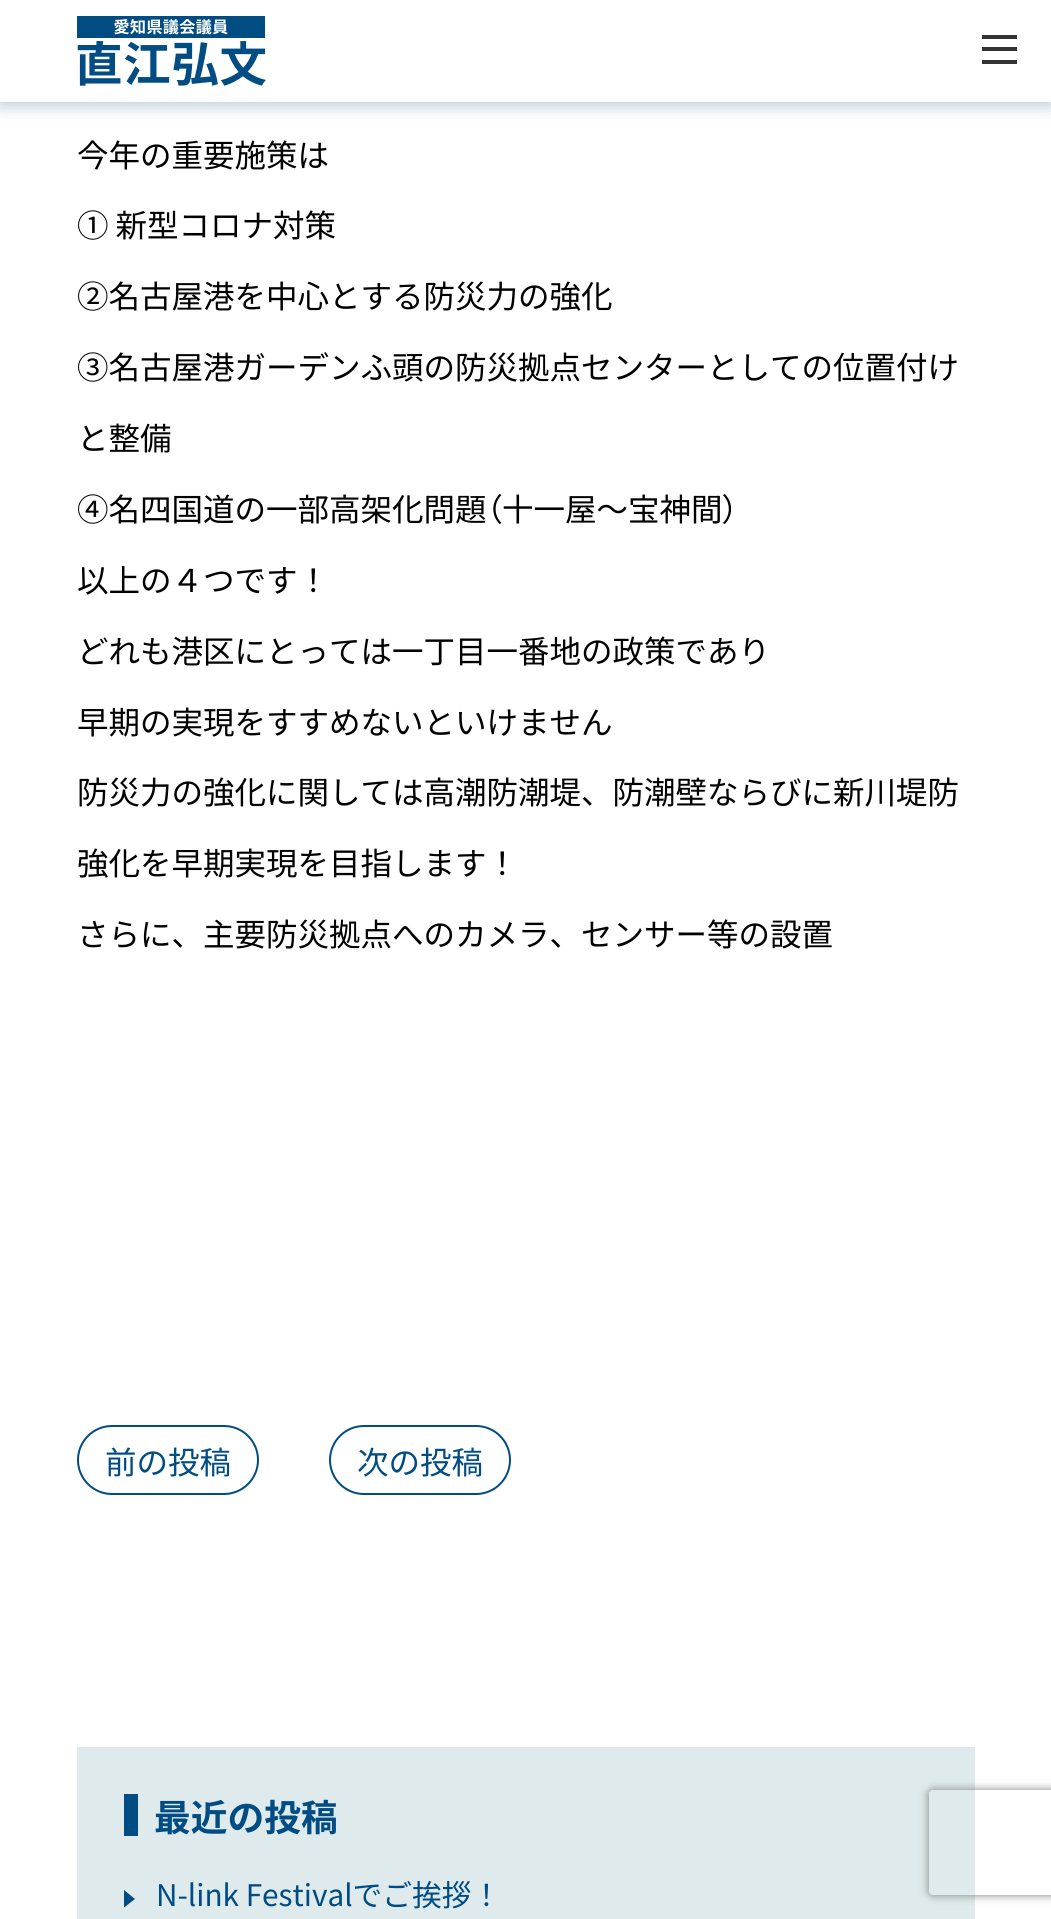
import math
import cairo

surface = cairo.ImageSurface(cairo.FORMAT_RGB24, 1051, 1919)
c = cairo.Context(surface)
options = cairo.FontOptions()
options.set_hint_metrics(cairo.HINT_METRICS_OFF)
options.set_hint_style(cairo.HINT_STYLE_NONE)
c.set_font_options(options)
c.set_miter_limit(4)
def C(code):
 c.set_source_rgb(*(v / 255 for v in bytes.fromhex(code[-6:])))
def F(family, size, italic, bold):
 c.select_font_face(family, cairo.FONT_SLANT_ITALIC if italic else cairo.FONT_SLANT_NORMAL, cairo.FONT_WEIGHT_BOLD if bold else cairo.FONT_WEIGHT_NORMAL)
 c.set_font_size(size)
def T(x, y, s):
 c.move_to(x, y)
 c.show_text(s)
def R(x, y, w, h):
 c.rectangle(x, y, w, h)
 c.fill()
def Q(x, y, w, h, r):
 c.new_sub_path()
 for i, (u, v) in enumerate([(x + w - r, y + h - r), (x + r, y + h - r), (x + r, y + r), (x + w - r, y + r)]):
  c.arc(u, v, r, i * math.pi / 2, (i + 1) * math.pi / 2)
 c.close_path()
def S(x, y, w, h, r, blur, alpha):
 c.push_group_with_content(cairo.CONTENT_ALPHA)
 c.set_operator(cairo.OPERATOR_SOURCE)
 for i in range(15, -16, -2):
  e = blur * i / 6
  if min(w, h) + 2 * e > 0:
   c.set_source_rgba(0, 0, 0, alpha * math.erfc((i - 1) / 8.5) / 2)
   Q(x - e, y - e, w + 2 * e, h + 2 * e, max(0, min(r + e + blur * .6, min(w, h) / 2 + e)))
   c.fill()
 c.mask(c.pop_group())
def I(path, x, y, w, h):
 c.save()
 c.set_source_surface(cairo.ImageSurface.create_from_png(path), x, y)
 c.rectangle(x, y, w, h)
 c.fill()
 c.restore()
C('ffffff')
c.paint()
C('004c82')
S(0,4,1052,101,0,9,.3)
C('ffffff')
R(0,0,1051,102)
I('1.png',77,16,189,70)
C('333333')
R(982,35,35,4)
R(982,47,35,4)
R(982,60,35,4)
F('Noto Sans JP',31.5,0,0)
C('000000')
T(77,167,'今年の重要施策は')
T(77,237,'① 新型コロナ対策')
T(77,308,'②名古屋港を中心とする防災力の強化')
T(77,379,'③名古屋港ガーデンふ頭の防災拠点センターとしての位置付け')
T(77,450,'と整備')
T(77,521,'④名四国道の一部高架化問題')
F('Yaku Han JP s',31.5,0,0)
T(487,521,'（')
F('Noto Sans JP',31.5,0,0)
T(502,521,'十一屋～宝神間')
F('Yaku Han JP s',31.5,0,0)
T(722,521,'）')
F('Noto Sans JP',31.5,0,0)
T(77,592,'以上の４つです！')
T(77,663,'どれも港区にとっては一丁目一番地の政策であり')
T(77,734,'早期の実現をすすめないといけません')
T(77,804,'防災力の強化に関しては高潮防潮堤、防潮壁ならびに新川堤防')
T(77,875,'強化を早期実現を目指します！')
T(77,946,'さらに、主要防災拠点へのカメラ、センサー等の設置')
Q(78,1426,180,68,34)
C('004c83')
c.stroke()
T(105,1474,'前の投稿')
Q(330,1426,180,68,34)
c.stroke()
T(357,1474,'次の投稿')
C('deeaeb')
R(77,1747,898,172)
C('004c83')
R(124,1794,14,42)
F('Noto Sans JP',36.75,0,1)
T(154,1831,'最近の投稿')
c.new_path()
c.move_to(124,1907.5)
c.line_to(124,1890)
c.line_to(135,1899)
c.close_path()
c.fill()
F('Noto Sans JP',29.75,0,0)
T(156,1906,'N-link Festivalでご挨拶！')
c.save()
c.set_fill_rule(cairo.FILL_RULE_EVEN_ODD)
c.new_path()
c.move_to(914,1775)
c.line_to(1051,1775)
c.line_to(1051,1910)
c.line_to(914,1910)
c.close_path()
c.move_to(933,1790)
c.line_to(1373,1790)
c.curve_to(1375,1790,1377,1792,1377,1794)
c.line_to(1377,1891)
c.curve_to(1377,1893,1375,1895,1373,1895)
c.line_to(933,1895)
c.curve_to(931,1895,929,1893,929,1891)
c.line_to(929,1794)
c.curve_to(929,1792,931,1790,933,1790)
c.close_path()
c.clip()
C('808080')
S(929,1790,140,105,4,4.5,1)
c.restore()
surface.write_to_png('o.png')
